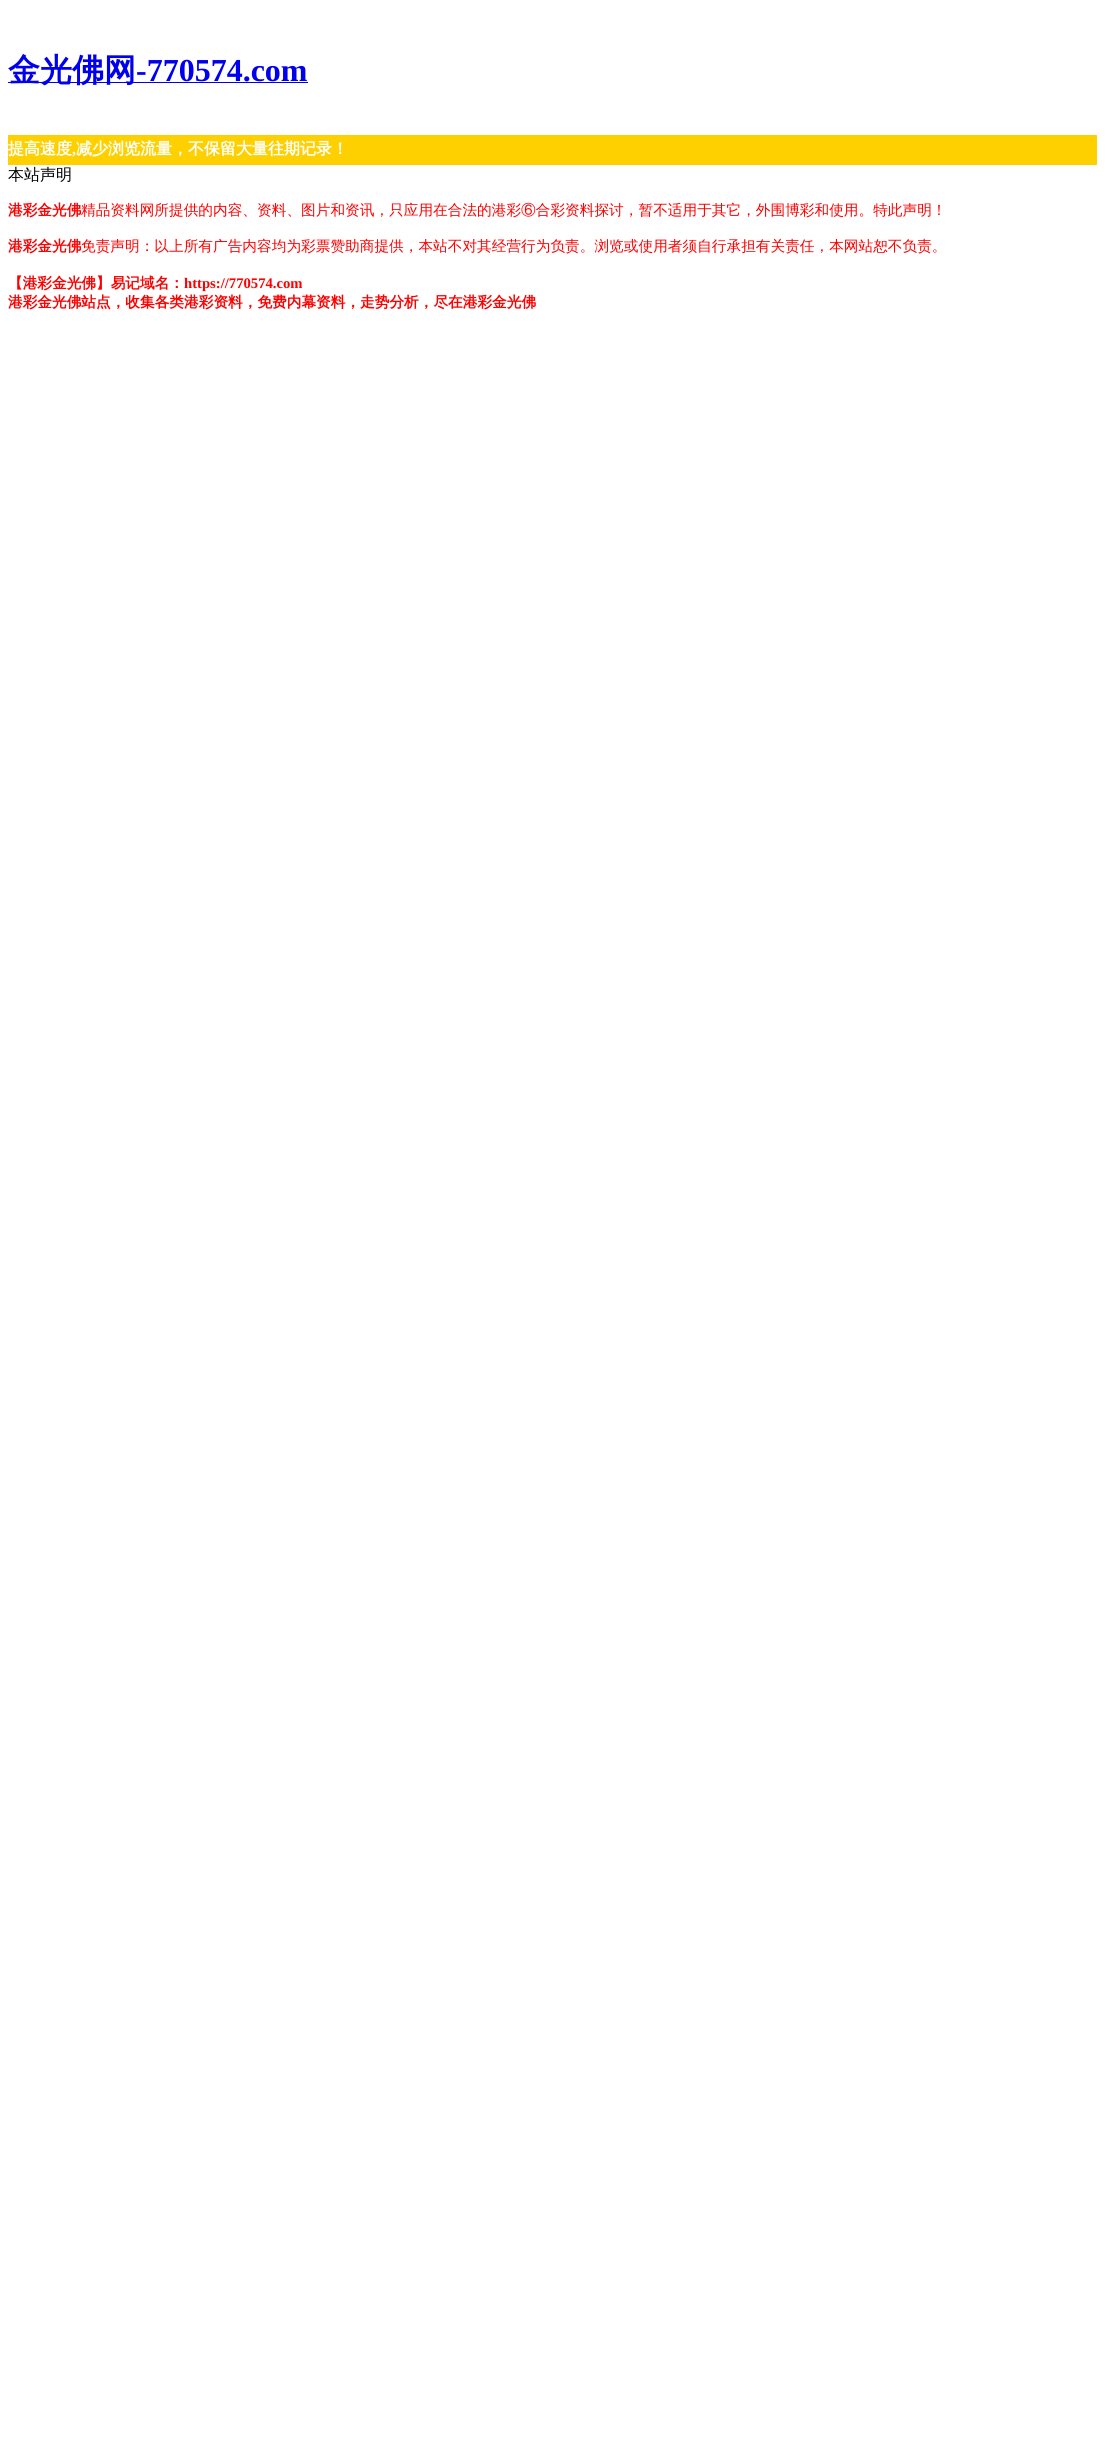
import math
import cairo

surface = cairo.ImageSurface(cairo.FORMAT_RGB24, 1105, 2441)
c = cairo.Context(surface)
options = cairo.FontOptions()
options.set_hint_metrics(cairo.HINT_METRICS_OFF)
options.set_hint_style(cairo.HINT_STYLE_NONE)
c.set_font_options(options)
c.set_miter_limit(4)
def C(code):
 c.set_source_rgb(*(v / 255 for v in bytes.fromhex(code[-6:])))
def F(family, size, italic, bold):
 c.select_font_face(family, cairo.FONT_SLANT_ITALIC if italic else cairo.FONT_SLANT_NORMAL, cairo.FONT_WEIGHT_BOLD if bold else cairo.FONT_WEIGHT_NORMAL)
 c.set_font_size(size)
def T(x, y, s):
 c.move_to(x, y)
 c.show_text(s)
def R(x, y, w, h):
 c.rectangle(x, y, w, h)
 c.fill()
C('ffffff')
c.paint()
C('0000ee')
R(8,82,300,1)
F('WenQuanYi Zen Hei',32,0,1)
T(8,81,'金光佛网')
F('Liberation Serif',32,0,1)
T(136,81,'-770574.com')
C('ffd000')
R(8,135,1089,30)
F('WenQuanYi Zen Hei',16,0,1)
C('ffffff')
T(8,154,'提高速度')
F('Liberation Serif',16,0,1)
T(72,154,',')
F('WenQuanYi Zen Hei',16,0,1)
T(76,154,'减少浏览流量，不保留大量往期记录！')
F('WenQuanYi Zen Hei Medium',16,0,0)
C('000000')
T(8,180,'本站声明')
F('WenQuanYi Zen Hei',14.67,0,1)
C('ff0000')
T(8,215,'港彩金光佛')
F('WenQuanYi Zen Hei Medium',14.67,0,0)
T(81,215,'精品资料网所提供的内容、资料、图片和资讯，只应用在合法的港彩⑥合彩资料探讨，暂不适用于其它，外围博彩和使用。特此声明！')
F('WenQuanYi Zen Hei',14.67,0,1)
T(8,251,'港彩金光佛')
F('WenQuanYi Zen Hei Medium',14.67,0,0)
T(81,251,'免责声明：以上所有广告内容均为彩票赞助商提供，本站不对其经营行为负责。浏览或使用者须自行承担有关责任，本网站恕不负责。')
F('WenQuanYi Zen Hei',14.67,0,1)
T(8,288,'【港彩金光佛】易记域名：')
F('Liberation Serif',14.67,0,1)
T(184,288,'https://770574.com')
F('WenQuanYi Zen Hei',14.67,0,1)
T(8,307,'港彩金光佛站点，收集各类港彩资料，免费内幕资料，走势分析，尽在港彩金光佛')
surface.write_to_png('o.png')
